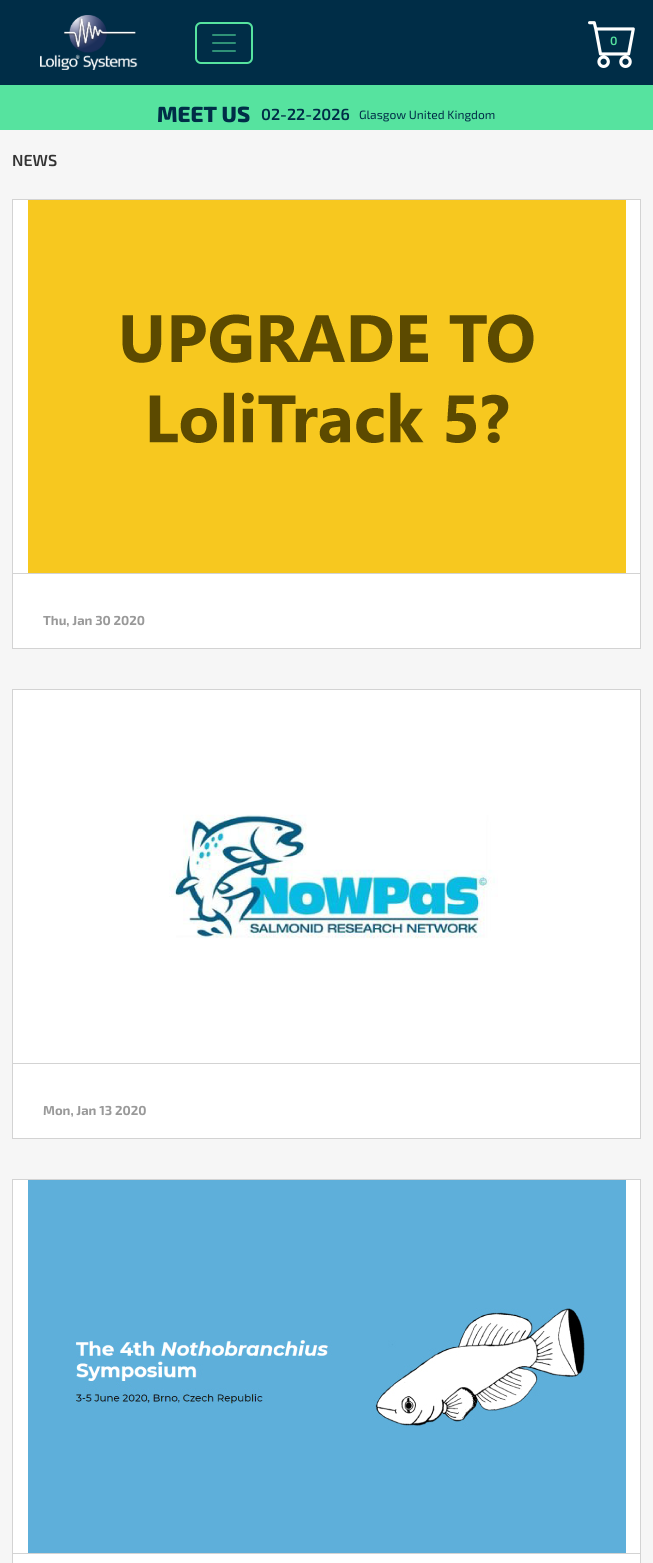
import math
import cairo

surface = cairo.ImageSurface(cairo.FORMAT_RGB24, 653, 1563)
c = cairo.Context(surface)
options = cairo.FontOptions()
options.set_hint_metrics(cairo.HINT_METRICS_OFF)
options.set_hint_style(cairo.HINT_STYLE_NONE)
c.set_font_options(options)
c.set_miter_limit(4)
def C(code):
 c.set_source_rgb(*(v / 255 for v in bytes.fromhex(code[-6:])))
def F(family, size, italic, bold):
 c.select_font_face(family, cairo.FONT_SLANT_ITALIC if italic else cairo.FONT_SLANT_NORMAL, cairo.FONT_WEIGHT_BOLD if bold else cairo.FONT_WEIGHT_NORMAL)
 c.set_font_size(size)
def T(x, y, s):
 c.move_to(x, y)
 c.show_text(s)
def R(x, y, w, h):
 c.rectangle(x, y, w, h)
 c.fill()
def Q(x, y, w, h, r):
 c.new_sub_path()
 for i, (u, v) in enumerate([(x + w - r, y + h - r), (x + r, y + h - r), (x + r, y + r), (x + w - r, y + r)]):
  c.arc(u, v, r, i * math.pi / 2, (i + 1) * math.pi / 2)
 c.close_path()
def I(path, x, y, w, h):
 c.save()
 c.set_source_surface(cairo.ImageSurface.create_from_png(path), x, y)
 c.rectangle(x, y, w, h)
 c.fill()
 c.restore()
C('f6f6f6')
c.paint()
C('002d47')
R(0,0,653,85)
I('1.png',40,15,98,55)
Q(196,23,56,40,5)
C('56e39f')
c.stroke()
I('2.png',212,34,24,18)
I('3.png',588,21,47,47)
F('Exo 2 SemiBold',12,0,0)
T(610,45,'0')
R(0,85,653,45)
F('Exo 2 ExtraBold',22,0,0)
C('002d47')
T(157,122,'MEET US')
F('Exo 2 SemiBold',16,0,0)
T(261,120,'02-22-2026')
F('Exo 2',12,0,0)
T(359,119,'Glasgow United Kingdom')
F('Exo 2 SemiBold',16,0,0)
C('333333')
T(12,166,'NEWS')
C('ffffff')
c.rectangle(12.5,199.5,628,449)
c.fill_preserve()
C('d3d3d3')
c.set_line_width(1)
c.stroke()
R(13,573,627,1)
I('4.png',28,200,598,373)
F('Exo 2',13,0,1)
C('999999')
T(43,625,'Thu, Jan 30 2020')
C('ffffff')
c.rectangle(12.5,689.5,628,449)
c.fill_preserve()
C('d3d3d3')
c.stroke()
R(13,1063,627,1)
I('5.png',169,814,329,125)
C('999999')
T(43,1115,'Mon, Jan 13 2020')
C('ffffff')
c.rectangle(12.5,1179.5,628,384)
c.fill_preserve()
C('d3d3d3')
c.stroke()
R(13,1553,627,1)
I('6.png',28,1180,598,373)
surface.write_to_png('o.png')
